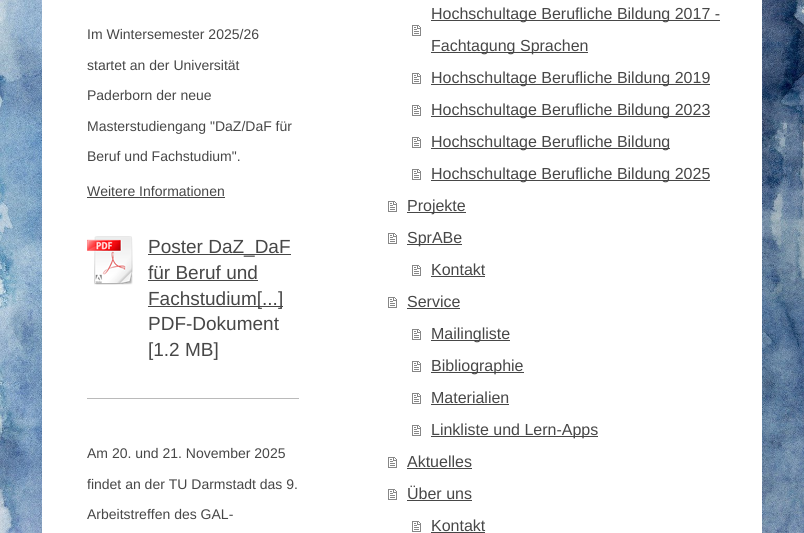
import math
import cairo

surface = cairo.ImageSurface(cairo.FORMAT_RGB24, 804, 533)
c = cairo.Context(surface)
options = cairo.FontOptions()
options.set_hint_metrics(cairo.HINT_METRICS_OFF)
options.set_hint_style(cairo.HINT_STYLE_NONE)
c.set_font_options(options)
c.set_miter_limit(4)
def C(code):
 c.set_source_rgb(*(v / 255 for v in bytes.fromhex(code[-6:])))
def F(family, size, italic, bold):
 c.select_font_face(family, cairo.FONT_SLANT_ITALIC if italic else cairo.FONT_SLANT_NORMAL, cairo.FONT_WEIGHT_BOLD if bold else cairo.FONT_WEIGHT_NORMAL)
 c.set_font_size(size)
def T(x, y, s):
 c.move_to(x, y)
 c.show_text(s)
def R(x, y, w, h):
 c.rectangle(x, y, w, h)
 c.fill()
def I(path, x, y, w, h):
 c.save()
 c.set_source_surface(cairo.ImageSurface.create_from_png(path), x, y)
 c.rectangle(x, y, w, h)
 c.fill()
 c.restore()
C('ffffff')
c.paint()
I('1.png',0,0,804,533)
C('ffffff')
R(42,0,720,533)
F('Liberation Sans',14,0,0)
C('474747')
T(87,39,'Im Wintersemester 2025/26')
T(87,70,'startet an der Universität')
T(87,100,'Paderborn der neue')
T(87,131,'Masterstudiengang "DaZ/DaF für')
T(87,161,'Beruf und Fachstudium".')
T(87,196,'Weitere Informationen')
R(87,197,138,1)
I('2.png',87,236,46,49)
R(148,254,143,1)
F('Liberation Sans',19,0,0)
T(148,253,'Poster DaZ_DaF')
T(148,279,'für Beruf und')
R(148,280,110,1)
R(148,306,135,1)
T(148,305,'Fachstudium[...]')
T(148,330,'PDF-Dokument')
T(148,356,'[1.2 MB]')
C('bababa')
R(87,398,212,1)
F('Liberation Sans',14,0,0)
C('474747')
T(87,458,'Am 20. und 21. November 2025')
T(87,489,'findet an der TU Darmstadt das 9.')
T(87,519,'Arbeitstreffen des GAL-')
I('3.png',412,25,9,11)
R(431,20,289,1)
F('Liberation Sans',16,0,0)
T(431,19,'Hochschultage Berufliche Bildung 2017 -')
R(431,52,157,1)
T(431,51,'Fachtagung Sprachen')
I('3.png',412,73,9,11)
R(431,84,279,1)
T(431,83,'Hochschultage Berufliche Bildung 2019')
I('3.png',412,105,9,11)
R(431,116,279,1)
T(431,115,'Hochschultage Berufliche Bildung 2023')
I('3.png',412,137,9,11)
R(431,148,239,1)
T(431,147,'Hochschultage Berufliche Bildung')
I('3.png',412,169,9,11)
R(431,180,279,1)
T(431,179,'Hochschultage Berufliche Bildung 2025')
I('3.png',388,201,9,11)
R(407,212,59,1)
T(407,211,'Projekte')
I('3.png',388,233,9,11)
R(407,244,55,1)
T(407,243,'SprABe')
I('3.png',412,265,9,11)
T(431,275,'Kontakt')
R(431,276,54,1)
I('3.png',388,297,9,11)
T(407,307,'Service')
R(407,308,53,1)
I('3.png',412,329,9,11)
R(431,340,79,1)
T(431,339,'Mailingliste')
I('3.png',412,361,9,11)
R(431,372,93,1)
T(431,371,'Bibliographie')
I('3.png',412,393,9,11)
T(431,403,'Materialien')
R(431,404,78,1)
I('3.png',412,425,9,11)
R(431,436,167,1)
T(431,435,'Linkliste und Lern-Apps')
I('3.png',388,457,9,11)
T(407,467,'Aktuelles')
R(407,468,65,1)
I('3.png',388,489,9,11)
T(407,499,'Über uns')
R(407,500,65,1)
I('3.png',412,521,9,11)
T(431,531,'Kontakt')
R(431,532,54,1)
surface.write_to_png('o.png')
